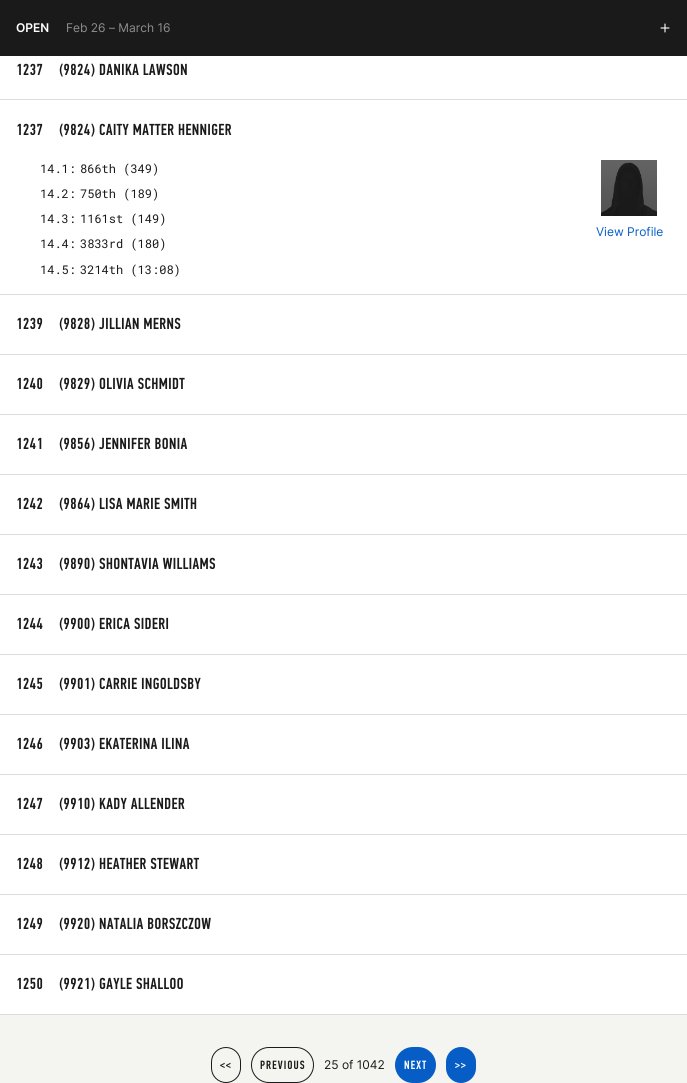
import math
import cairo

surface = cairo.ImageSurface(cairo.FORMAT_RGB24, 687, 1083)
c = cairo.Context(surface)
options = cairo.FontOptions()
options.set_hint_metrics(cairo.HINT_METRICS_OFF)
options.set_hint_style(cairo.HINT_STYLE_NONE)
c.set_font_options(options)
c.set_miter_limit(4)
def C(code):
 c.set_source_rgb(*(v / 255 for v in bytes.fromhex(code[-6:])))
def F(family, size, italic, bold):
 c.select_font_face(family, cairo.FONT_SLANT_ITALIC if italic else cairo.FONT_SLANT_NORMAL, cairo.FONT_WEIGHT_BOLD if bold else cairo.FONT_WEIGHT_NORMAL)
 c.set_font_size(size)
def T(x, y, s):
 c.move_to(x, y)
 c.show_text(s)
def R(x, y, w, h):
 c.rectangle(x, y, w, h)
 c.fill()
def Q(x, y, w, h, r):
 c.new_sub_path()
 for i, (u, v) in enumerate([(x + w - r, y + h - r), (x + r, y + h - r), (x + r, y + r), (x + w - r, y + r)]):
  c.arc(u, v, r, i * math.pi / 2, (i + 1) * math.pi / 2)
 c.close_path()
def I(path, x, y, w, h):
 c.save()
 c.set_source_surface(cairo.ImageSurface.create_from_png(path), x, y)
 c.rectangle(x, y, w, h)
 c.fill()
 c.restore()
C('f4f4f0')
c.paint()
C('1a1a1a')
R(0,0,687,56)
F('Inter SemiBold',12,0,0)
C('ffffff')
T(16,32,'OPEN')
F('Inter',12,0,0)
C('8e8e93')
T(66,32,'Feb 26 – March 16')
I('1.png',660,23,10,10)
C('ffffff')
R(0,56,687,958)
C('dcdcdc')
R(0,99,687,1)
I('2.png',17,63,26,13)
I('3.png',59,63,36,14)
I('4.png',99,63,88,13)
I('2.png',17,123,26,13)
I('3.png',59,123,36,14)
I('5.png',99,123,133,13)
R(0,294,687,1)
F('Roboto Mono',12,0,0)
C('1a1a1a')
T(40,173,'14.1:')
T(80,173,'866th (349)')
T(40,198,'14.2:')
T(80,198,'750th (189)')
T(40,223,'14.3:')
T(80,223,'1161st (149)')
T(40,248,'14.4:')
T(80,248,'3833rd (180)')
T(40,274,'14.5:')
T(80,274,'3214th (13:08)')
I('6.png',601,160,56,56)
F('Inter',12,0,0)
C('075dc6')
T(596,236,'View Profile')
C('dcdcdc')
R(0,354,687,1)
I('7.png',17,317,26,13)
I('8.png',59,317,36,14)
I('9.png',99,317,82,13)
R(0,414,687,1)
I('10.png',17,377,26,13)
I('11.png',59,377,36,14)
I('12.png',99,377,86,13)
R(0,474,687,1)
I('13.png',17,437,25,12)
I('14.png',59,437,36,14)
I('15.png',99,437,89,13)
R(0,534,687,1)
I('16.png',17,497,26,12)
I('17.png',59,497,36,14)
I('18.png',99,497,98,13)
R(0,594,687,1)
I('19.png',17,557,26,13)
I('20.png',59,557,36,14)
I('21.png',99,557,117,13)
R(0,654,687,1)
I('22.png',17,617,26,12)
I('23.png',59,617,36,14)
I('24.png',99,617,70,13)
R(0,714,687,1)
I('25.png',17,677,26,13)
I('26.png',59,677,36,14)
I('27.png',99,677,102,13)
R(0,774,687,1)
I('28.png',17,737,26,13)
I('29.png',59,737,36,14)
I('30.png',99,737,91,12)
R(0,834,687,1)
I('31.png',17,797,26,12)
I('32.png',59,797,36,14)
I('33.png',99,797,86,12)
R(0,894,687,1)
I('34.png',17,857,26,13)
I('35.png',59,857,36,14)
I('36.png',99,857,101,13)
R(0,954,687,1)
I('37.png',17,917,26,12)
I('38.png',59,917,36,14)
I('39.png',99,917,112,13)
R(0,1014,687,1)
I('40.png',17,977,26,13)
I('41.png',59,977,36,14)
I('42.png',99,977,84,13)
Q(211.5,1047.5,29,35,14.5)
C('1a1a1a')
c.set_line_width(1)
c.stroke()
I('43.png',220,1062,11,6)
Q(251.5,1047.5,62,35,17.5)
c.stroke()
I('44.png',260,1060,45,10)
T(324,1069,'25 of 1042')
C('075dc6')
Q(395,1047,41,36,18)
c.fill()
I('45.png',404,1060,23,9)
Q(446,1047,30,36,15)
c.fill()
I('46.png',455,1062,11,6)
surface.write_to_png('o.png')
